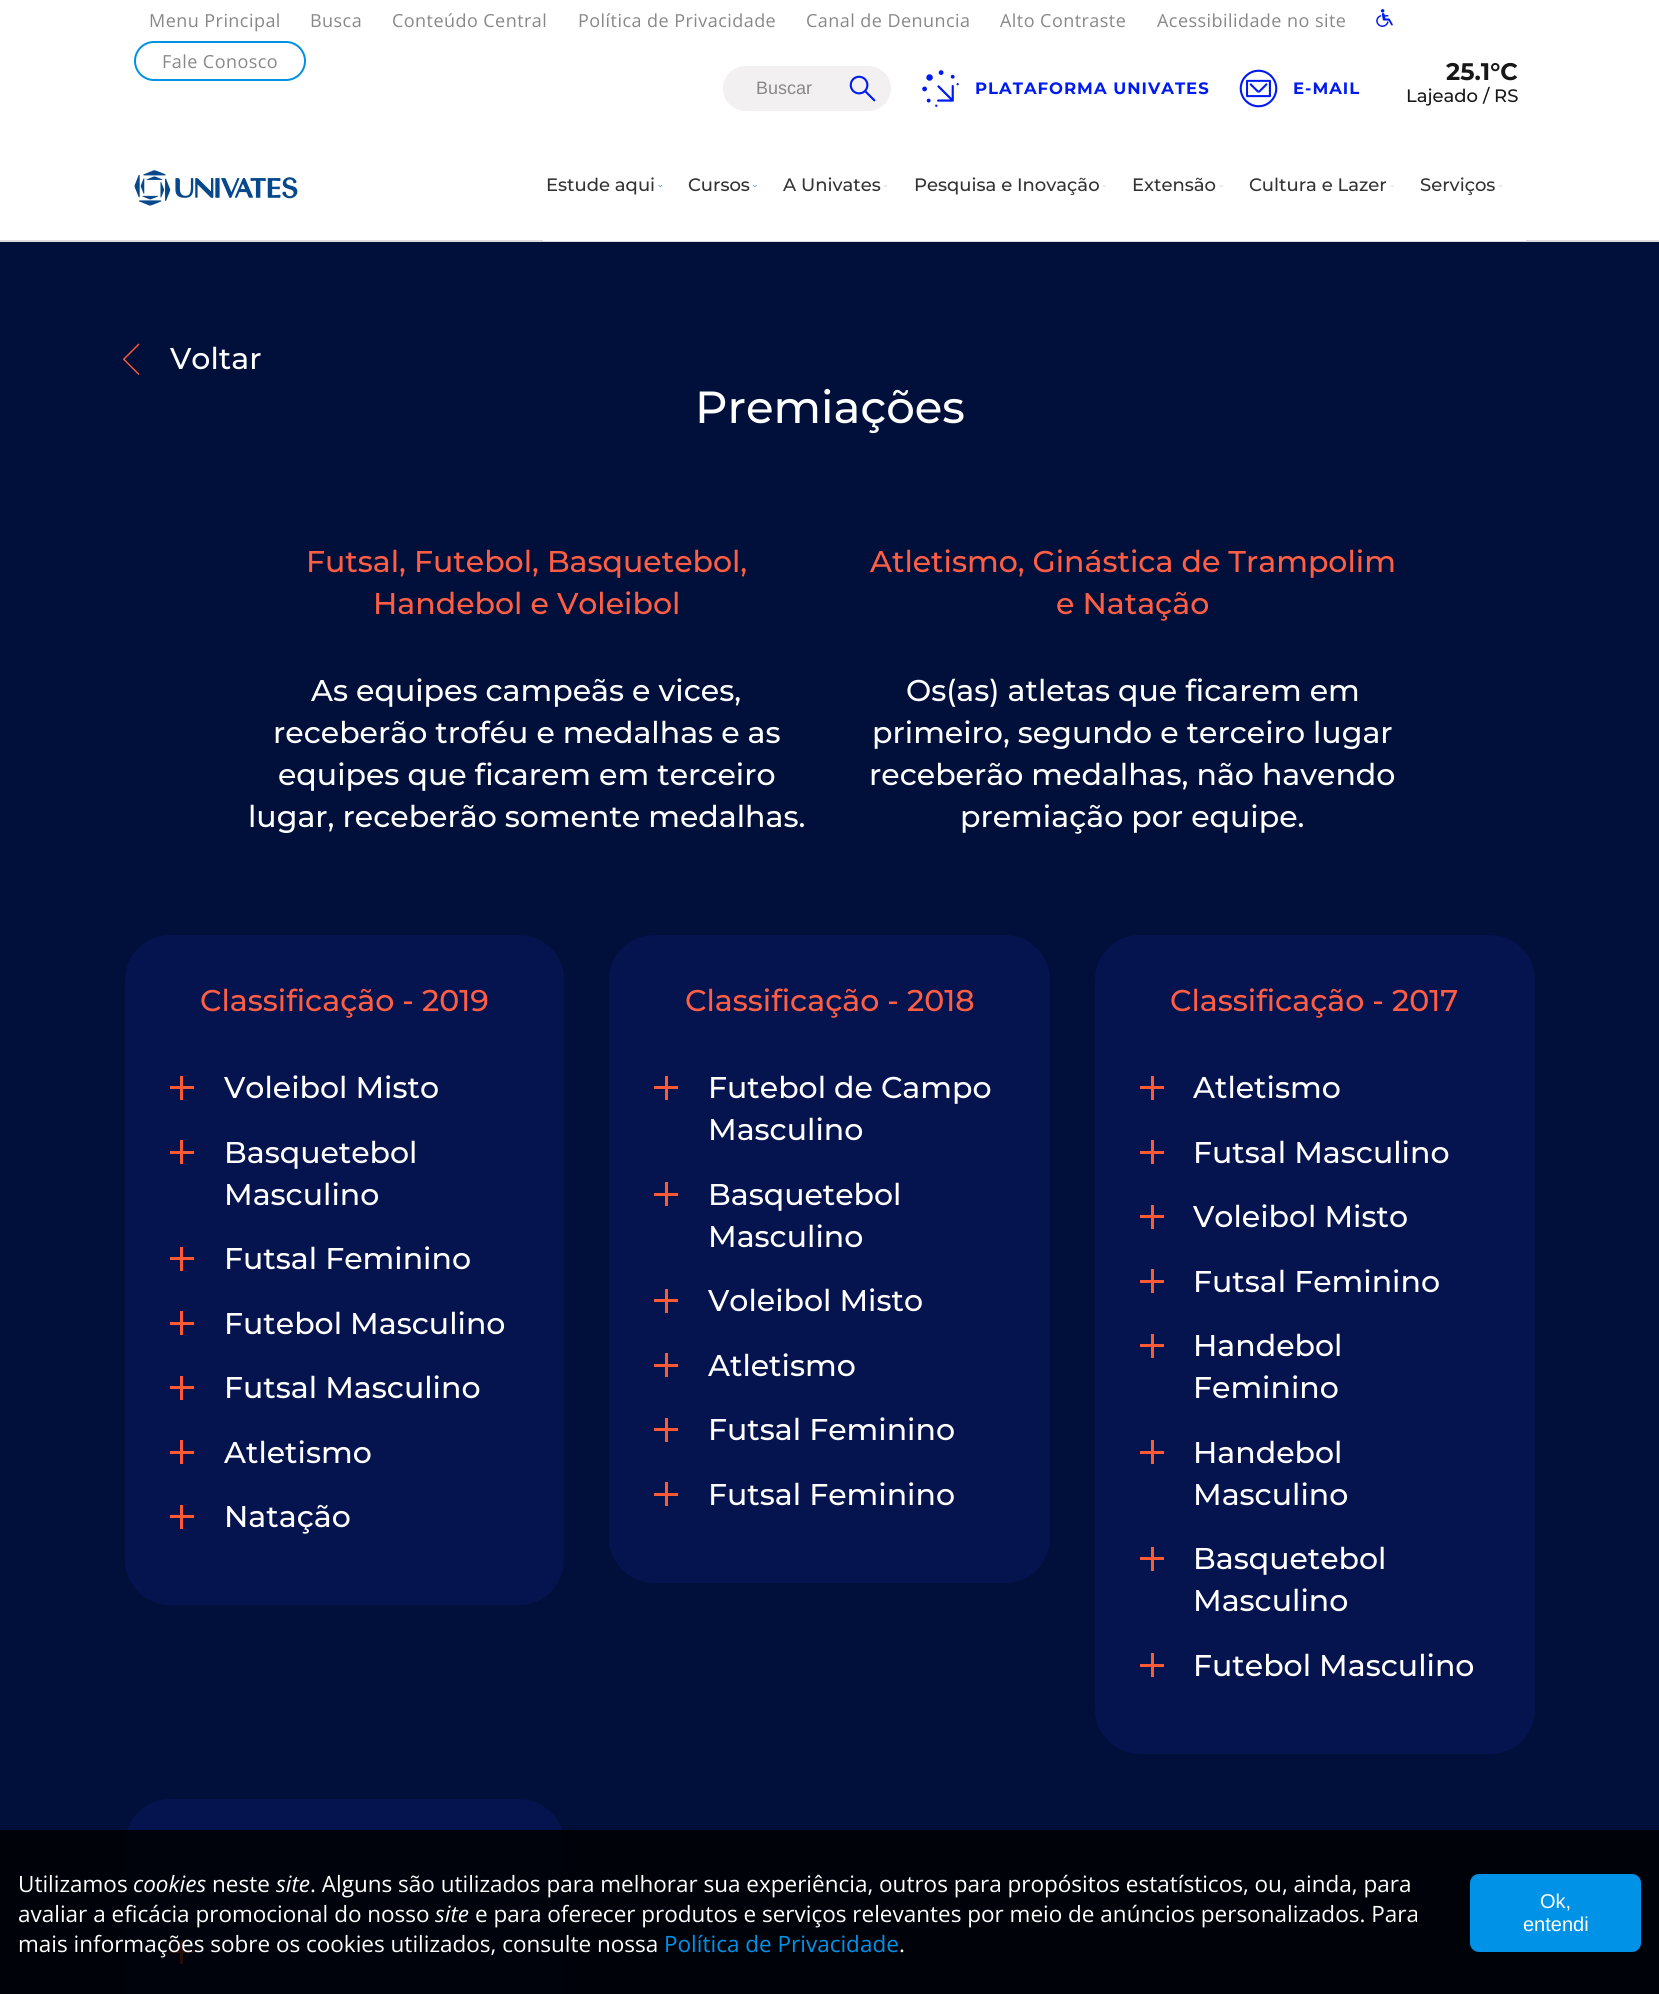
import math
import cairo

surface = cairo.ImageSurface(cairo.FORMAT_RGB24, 1659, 1994)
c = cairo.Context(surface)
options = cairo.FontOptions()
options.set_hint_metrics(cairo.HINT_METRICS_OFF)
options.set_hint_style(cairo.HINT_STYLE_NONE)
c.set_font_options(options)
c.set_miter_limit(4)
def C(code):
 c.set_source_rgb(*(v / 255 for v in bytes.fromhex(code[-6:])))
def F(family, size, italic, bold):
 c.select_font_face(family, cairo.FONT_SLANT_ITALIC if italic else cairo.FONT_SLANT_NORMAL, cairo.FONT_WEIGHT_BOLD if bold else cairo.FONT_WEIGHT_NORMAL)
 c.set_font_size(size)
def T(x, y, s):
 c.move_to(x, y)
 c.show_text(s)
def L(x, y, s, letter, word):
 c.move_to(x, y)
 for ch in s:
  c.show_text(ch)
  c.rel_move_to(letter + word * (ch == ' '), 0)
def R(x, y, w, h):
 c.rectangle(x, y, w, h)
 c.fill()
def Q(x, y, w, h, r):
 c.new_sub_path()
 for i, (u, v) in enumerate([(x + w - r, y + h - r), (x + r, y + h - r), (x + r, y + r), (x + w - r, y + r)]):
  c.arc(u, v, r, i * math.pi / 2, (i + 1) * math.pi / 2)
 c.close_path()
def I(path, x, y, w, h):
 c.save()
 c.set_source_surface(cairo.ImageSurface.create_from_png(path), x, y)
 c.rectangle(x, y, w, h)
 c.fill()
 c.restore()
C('ffffff')
c.paint()
F('Open Sans',18,0,0)
C('888888')
L(149,27,'Menu Principal',.45,0)
L(310,27,'Busca',.45,0)
L(392,27,'Conteúdo Central',.45,0)
L(578,27,'Política de Privacidade',.45,0)
L(806,27,'Canal de Denuncia',.45,0)
L(1000,27,'Alto Contraste',.45,0)
L(1157,27,'Acessibilidade no site',.45,0)
I('1.png',1376,9,17,18)
Q(135,42,170,38,19)
C('0091e4')
c.stroke()
C('888888')
L(162,68,'Fale Conosco',.45,0)
C('f2f0f0')
Q(723,66,168,45,22.5)
c.fill()
F('Liberation Sans',18,0,0)
C('888888')
T(756,94,'Buscar')
I('2.png',849,75,27,27)
I('3.png',922,70,37,37)
F('Montserrat',16.5,0,1)
C('001bf1')
L(975,94,'PLATAFORMA UNIVATES',1,0)
I('4.png',1239,69,39,39)
L(1293,94,'E-MAIL',1,0)
F('Montserrat',24,0,1)
C('181818')
T(1446,80,'25.1°C')
F('Montserrat Medium',18,0,0)
T(1406,102,'Lajeado / RS')
C('dcdcdc')
R(0,240,1659,2)
I('5.png',134,170,164,36)
C('ffffff')
R(543,240,983,1)
C('333333')
T(546,191,'Estude aqui')
I('6.png',658,185,5,2)
T(688,191,'Cursos')
I('7.png',753,185,4,2)
T(783,191,'A Univates')
I('8.png',883,185,5,2)
T(914,191,'Pesquisa e Inovação')
I('8.png',1102,185,5,2)
T(1132,191,'Extensão')
I('8.png',1219,185,5,2)
T(1249,191,'Cultura e Lazer')
I('8.png',1390,185,5,2)
T(1420,191,'Serviços')
I('8.png',1498,185,5,2)
C('00103b')
R(0,242,1659,1752)
C('ff5a33')
c.new_path()
c.move_to(139.5,344.5)
c.line_to(124,360)
c.line_to(123,359)
c.line_to(138.5,343.5)
c.close_path()
c.fill()
F('Montserrat Medium',30,0,0)
C('ffffff')
T(170,369,'Voltar')
C('ff5a33')
c.new_path()
c.move_to(124,358.5)
c.line_to(139.5,374)
c.line_to(138.5,375)
c.line_to(123,359.5)
c.close_path()
c.fill()
F('Montserrat Medium',45,0,0)
C('ffffff')
T(695,423,'Premiações')
F('Montserrat Medium',30,0,0)
C('ff5d44')
T(306,572,'Futsal, Futebol, Basquetebol,')
T(373,614,'Handebol e Voleibol')
C('ffffff')
T(311,701,'As equipes campeãs e vices,')
T(273,743,'receberão troféu e medalhas e as')
T(278,785,'equipes que ficarem em terceiro')
T(248,827,'lugar, receberão somente medalhas.')
C('ff5d44')
T(870,572,'Atletismo, Ginástica de Trampolim')
T(1056,614,'e Natação')
C('ffffff')
T(906,701,'Os(as) atletas que ficarem em')
T(872,743,'primeiro, segundo e terceiro lugar')
T(869,785,'receberão medalhas, não havendo')
T(960,827,'premiação por equipe.')
C('05134e')
Q(125,935,439,670,45)
c.fill()
C('ff5d44')
T(200,1011,'Classificação - 2019')
C('ff5a33')
R(170,1086,24,3)
R(180,1076,3,24)
C('ffffff')
T(224,1098,'Voleibol Misto')
C('ff5a33')
R(170,1151,24,3)
R(180,1140,3,24)
C('ffffff')
T(224,1163,'Basquetebol')
T(224,1205,'Masculino')
C('ff5a33')
R(170,1257,24,3)
R(180,1247,3,24)
C('ffffff')
T(224,1269,'Futsal Feminino')
C('ff5a33')
R(170,1322,24,3)
R(180,1311,3,24)
C('ffffff')
T(224,1334,'Futebol Masculino')
C('ff5a33')
R(170,1386,24,3)
R(180,1376,3,24)
C('ffffff')
T(224,1398,'Futsal Masculino')
C('ff5a33')
R(170,1451,24,3)
R(180,1440,3,24)
C('ffffff')
T(224,1463,'Atletismo')
C('ff5a33')
R(170,1515,24,3)
R(180,1505,3,24)
C('ffffff')
T(224,1527,'Natação')
C('05134e')
Q(609,935,441,648,45)
c.fill()
C('ff5d44')
T(685,1011,'Classificação - 2018')
C('ff5a33')
R(654,1086,24,3)
R(665,1076,3,24)
C('ffffff')
T(708,1098,'Futebol de Campo')
T(708,1140,'Masculino')
C('ff5a33')
R(654,1193,24,3)
R(665,1182,3,24)
C('ffffff')
T(708,1205,'Basquetebol')
T(708,1247,'Masculino')
C('ff5a33')
R(654,1299,24,3)
R(665,1289,3,24)
C('ffffff')
T(708,1311,'Voleibol Misto')
C('ff5a33')
R(654,1364,24,3)
R(665,1353,3,24)
C('ffffff')
T(708,1376,'Atletismo')
C('ff5a33')
R(654,1428,24,3)
R(665,1418,3,24)
C('ffffff')
T(708,1440,'Futsal Feminino')
C('ff5a33')
R(654,1493,24,3)
R(665,1482,3,24)
C('ffffff')
T(708,1505,'Futsal Feminino')
C('05134e')
Q(1095,935,440,819,45)
c.fill()
C('ff5d44')
T(1170,1011,'Classificação - 2017')
C('ff5a33')
R(1140,1086,24,3)
R(1151,1076,3,24)
C('ffffff')
T(1193,1098,'Atletismo')
C('ff5a33')
R(1140,1151,24,3)
R(1151,1140,3,24)
C('ffffff')
T(1193,1163,'Futsal Masculino')
C('ff5a33')
R(1140,1215,24,3)
R(1151,1205,3,24)
C('ffffff')
T(1193,1227,'Voleibol Misto')
C('ff5a33')
R(1140,1280,24,3)
R(1151,1269,3,24)
C('ffffff')
T(1193,1292,'Futsal Feminino')
C('ff5a33')
R(1140,1344,24,3)
R(1151,1334,3,24)
C('ffffff')
T(1193,1356,'Handebol')
T(1193,1398,'Feminino')
C('ff5a33')
R(1140,1451,24,3)
R(1151,1440,3,24)
C('ffffff')
T(1193,1463,'Handebol')
T(1193,1505,'Masculino')
C('ff5a33')
R(1140,1557,24,3)
R(1151,1547,3,24)
C('ffffff')
T(1193,1569,'Basquetebol')
T(1193,1611,'Masculino')
C('ff5a33')
R(1140,1664,24,3)
R(1151,1653,3,24)
C('ffffff')
T(1193,1676,'Futebol Masculino')
C('05134e')
Q(125,1799,439,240,45)
c.fill()
C('ff5a33')
R(170,1950,24,3)
R(180,1940,3,24)
c.set_source_rgba(0,0,0,0.85)
R(0,1830,1659,164)
F('Open Sans',22.5,0,0)
C('ffffff')
T(18,1892,'Utilizamos')
F('Open Sans',22.5,1,0)
T(133,1892,'cookies')
F('Open Sans',22.5,0,0)
T(212,1892,'neste')
F('Open Sans',22.5,1,0)
T(276,1892,'site')
F('Open Sans',22.5,0,0)
T(310,1892,'. Alguns são utilizados para melhorar sua experiência, outros para propósitos estatísticos, ou, ainda, para')
T(18,1922,'avaliar a eficácia promocional do nosso')
F('Open Sans',22.5,1,0)
T(435,1922,'site')
F('Open Sans',22.5,0,0)
T(475,1922,'e para oferecer produtos e serviços relevantes por meio de anúncios personalizados. Para')
T(18,1952,'mais informações sobre os cookies utilizados, consulte nossa')
C('0092e7')
T(664,1952,'Política de Privacidade')
C('ffffff')
T(899,1952,'.')
C('0092e7')
Q(1470,1874,171,78,9)
c.fill()
F('Liberation Sans',20,0,0)
C('ffffff')
T(1540,1908,'Ok,')
T(1523,1931,'entendi')
surface.write_to_png('o.png')
